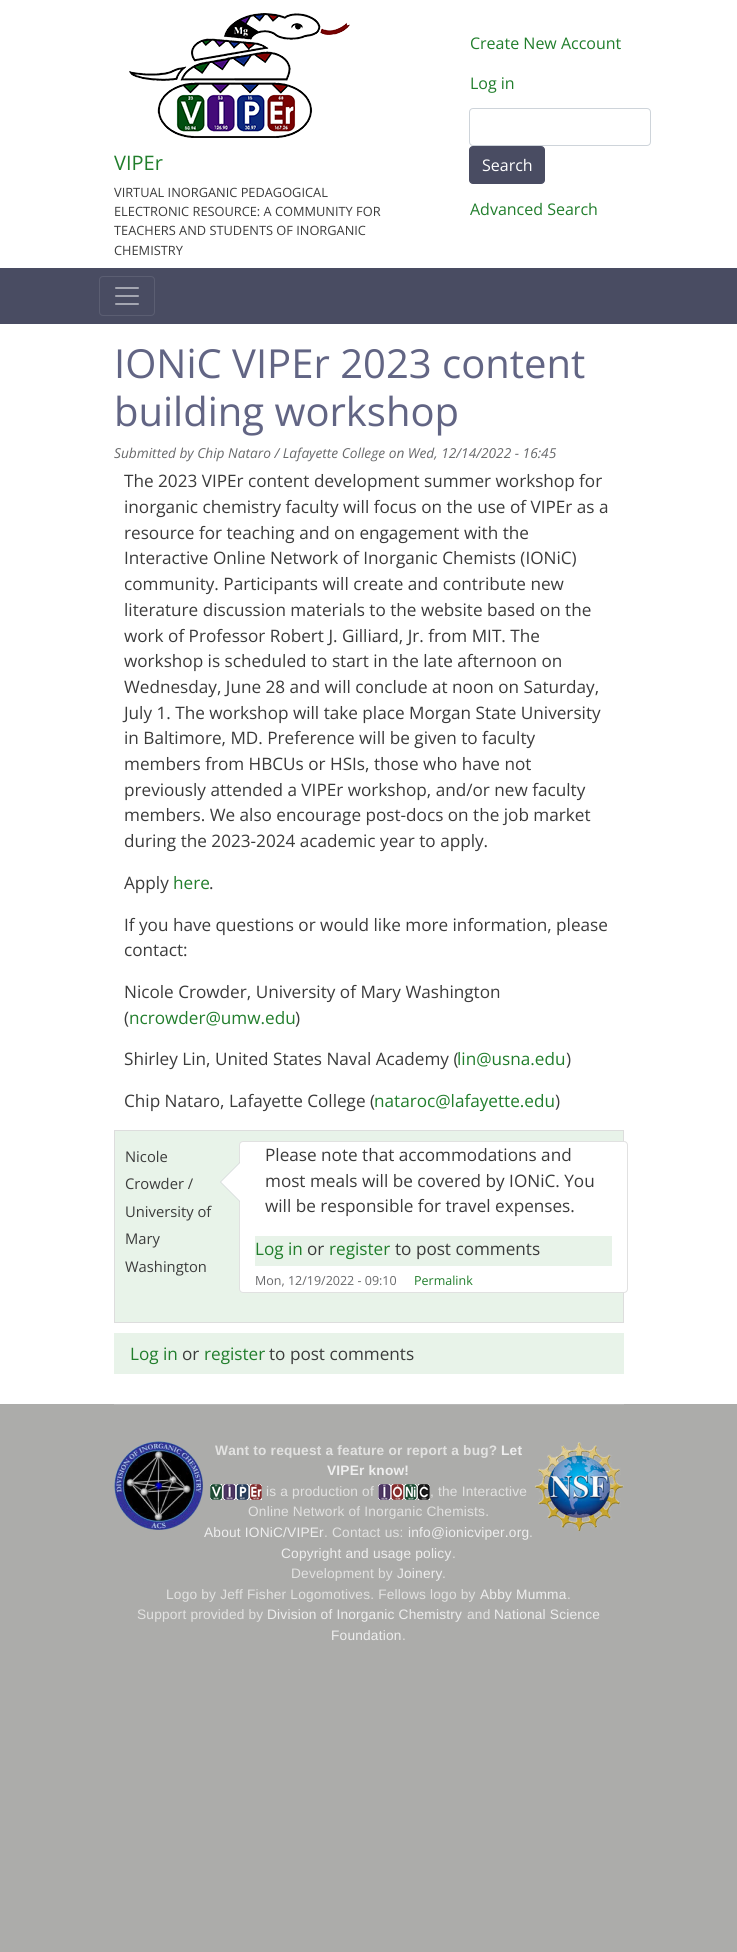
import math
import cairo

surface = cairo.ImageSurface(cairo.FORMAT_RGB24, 737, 1952)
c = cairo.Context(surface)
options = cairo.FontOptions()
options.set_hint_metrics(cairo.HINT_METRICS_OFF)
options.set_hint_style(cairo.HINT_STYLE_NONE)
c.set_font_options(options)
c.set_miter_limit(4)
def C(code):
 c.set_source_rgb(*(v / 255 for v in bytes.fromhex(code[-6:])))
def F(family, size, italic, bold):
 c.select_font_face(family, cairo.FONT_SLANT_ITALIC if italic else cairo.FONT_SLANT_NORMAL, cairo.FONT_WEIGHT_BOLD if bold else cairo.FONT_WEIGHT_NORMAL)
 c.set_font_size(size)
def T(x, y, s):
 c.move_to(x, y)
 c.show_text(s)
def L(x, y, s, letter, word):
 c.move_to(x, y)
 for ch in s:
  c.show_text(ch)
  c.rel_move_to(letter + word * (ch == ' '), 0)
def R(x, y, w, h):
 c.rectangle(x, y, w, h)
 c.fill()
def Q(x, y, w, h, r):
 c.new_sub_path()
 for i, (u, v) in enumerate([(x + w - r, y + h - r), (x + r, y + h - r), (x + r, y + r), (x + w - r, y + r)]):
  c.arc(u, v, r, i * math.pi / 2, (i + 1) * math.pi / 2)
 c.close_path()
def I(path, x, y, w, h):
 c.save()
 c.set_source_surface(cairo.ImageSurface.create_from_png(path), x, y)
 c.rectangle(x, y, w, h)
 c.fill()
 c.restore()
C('acacaa')
c.paint()
C('ffffff')
R(0,0,737,1404)
I('1.png',129,13,221,125)
F('Open Sans',20,0,0)
C('217e2c')
T(114,170,'VIPEr')
F('Open Sans',12.8,0,0)
C('3b3b3b')
T(114,197,'VIRTUAL INORGANIC PEDAGOGICAL')
T(114,216,'ELECTRONIC RESOURCE: A COMMUNITY FOR')
T(114,235,'TEACHERS AND STUDENTS OF INORGANIC')
T(114,255,'CHEMISTRY')
F('Open Sans',16,0,0)
C('217e2c')
T(470,49,'Create New Account')
T(470,89,'Log in')
Q(469.5,108.5,181,37,3.5)
C('ced4da')
c.set_line_width(1)
c.stroke()
C('494c62')
Q(469.5,146.5,75,37,3.5)
c.fill_preserve()
c.stroke()
C('ffffff')
T(482,171,'Search')
C('217e2c')
T(470,215,'Advanced Search')
C('494c62')
R(0,268,737,56)
Q(99.5,276.5,55,39,3.5)
C('5b5e72')
c.stroke()
I('2.png',115,287,24,18)
F('Open Sans',40,0,0)
C('626584')
T(114,378,'IONiC VIPEr 2023 content')
T(114,426,'building workshop')
F('Open Sans',13.7,1,0)
C('68696b')
T(114,458,'Submitted by Chip Nataro / Lafayette College on Wed, 12/14/2022 - 16:45')
F('Open Sans',17.15,0,0)
C('3b3b3b')
T(124,487,'The 2023 VIPEr content development summer workshop for')
T(124,513,'inorganic chemistry faculty will focus on the use of VIPEr as a')
T(124,539,'resource for teaching and on engagement with the')
T(124,564,'Interactive Online Network of Inorganic Chemists (IONiC)')
T(124,590,'community. Participants will create and contribute new')
T(124,616,'literature discussion materials to the website based on the')
T(124,642,'work of Professor Robert J. Gilliard, Jr. from MIT. The')
T(124,667,'workshop is scheduled to start in the late afternoon on')
T(124,693,'Wednesday, June 28 and will conclude at noon on Saturday,')
T(124,719,'July 1. The workshop will take place Morgan State University')
T(124,744,'in Baltimore, MD. Preference will be given to faculty')
T(124,770,'members from HBCUs or HSIs, those who have not')
T(124,796,'previously attended a VIPEr workshop, and/or new faculty')
T(124,821,'members. We also encourage post-docs on the job market')
T(124,847,'during the 2023-2024 academic year to apply.')
T(124,889,'Apply')
C('217e2c')
T(173,889,'here')
C('3b3b3b')
T(209,889,'.')
T(124,931,'If you have questions or would like more information, please')
T(124,956,'contact:')
T(124,998,'Nicole Crowder, University of Mary Washington')
T(124,1024,'(')
C('217e2c')
T(129,1024,'ncrowder@umw.edu')
C('3b3b3b')
T(295,1024,')')
T(124,1065,'Shirley Lin, United States Naval Academy (')
C('217e2c')
T(457,1065,'lin@usna.edu')
C('3b3b3b')
T(566,1065,')')
T(124,1107,'Chip Nataro, Lafayette College (')
C('217e2c')
T(374,1107,'nataroc@lafayette.edu')
C('3b3b3b')
T(555,1107,')')
C('e8f3e9')
c.rectangle(114.5,1130.5,509,192)
c.fill_preserve()
C('dddddd')
c.stroke()
F('Open Sans',14.75,0,0)
C('3b3b3b')
T(125,1162,'Nicole')
T(125,1189,'Crowder /')
T(125,1217,'University of')
T(125,1244,'Mary')
T(125,1272,'Washington')
C('ffffff')
Q(239,1141,389,152,4)
c.fill()
Q(239.5,1141.5,388,151,3.5)
c.set_source_rgba(0,0,0,0.12)
c.stroke()
C('d3d7d9')
c.new_path()
c.move_to(240,1162)
c.line_to(240,1202)
c.line_to(220,1182)
c.close_path()
c.fill()
F('Open Sans',17.15,0,0)
C('3b3b3b')
T(265,1161,'Please note that accommodations and')
T(265,1187,'most meals will be covered by IONiC. You')
T(265,1212,'will be responsible for travel expenses.')
C('e8f3e9')
R(255,1236,357,30)
C('217e2c')
T(255,1255,'Log in')
C('3b3b3b')
T(307,1255,'or')
C('217e2c')
T(329,1255,'register')
C('3b3b3b')
T(395,1255,'to post comments')
C('ffffff')
c.new_path()
c.move_to(241,1162)
c.line_to(241,1202)
c.line_to(221,1182)
c.close_path()
c.fill()
F('Open Sans',12.5,0,0)
C('68696b')
T(255,1285,'Mon, 12/19/2022 - 09:10')
C('217e2c')
T(414,1285,'Permalink')
C('e8f3e9')
R(114,1333,510,41)
F('Open Sans',17.15,0,0)
C('217e2c')
T(130,1360,'Log in')
C('3b3b3b')
T(182,1360,'or')
C('217e2c')
T(204,1360,'register')
C('3b3b3b')
T(269,1360,'to post comments')
C('b8b8b7')
R(114,1404,510,1)
I('3.png',114,1441,89,89)
F('Liberation Sans',13.7,0,1)
C('e2e2e1')
L(215,1455,'Want to request a feature or report a bug?',.2,0)
C('eeeeee')
L(501,1455,'Let',.2,0)
I('4.png',535,1442,89,89)
L(327,1475,'VIPEr know!',.2,0)
I('5.png',210,1484,52,16)
F('Liberation Sans',13.7,0,0)
C('e2e2e1')
L(266,1496,'is a production of',.2,0)
I('6.png',378,1484,52,16)
L(430,1496,', the Interactive',.2,0)
L(248,1516,'Online Network of Inorganic Chemists.',.2,0)
C('eeeeee')
L(204,1537,'About IONiC/VIPEr',.2,0)
C('e2e2e1')
L(324,1537,'. Contact us:',.2,0)
C('eeeeee')
L(408,1537,'info@ionicviper.org',.2,0)
C('e2e2e1')
L(529,1537,'.',.2,0)
C('eeeeee')
L(281,1558,'Copyright and usage policy',.2,0)
C('e2e2e1')
L(452,1558,'.',.2,0)
L(291,1578,'Development by',.2,0)
C('eeeeee')
L(397,1578,'Joinery',.2,0)
C('e2e2e1')
L(442,1578,'.',.2,0)
L(166,1599,'Logo by Jeff Fisher Logomotives. Fellows logo by',.2,0)
C('eeeeee')
L(480,1599,'Abby Mumma',.2,0)
C('e2e2e1')
L(567,1599,'.',.2,0)
L(137,1619,'Support provided by',.2,0)
C('eeeeee')
L(267,1619,'Division of Inorganic Chemistry',.2,0)
C('e2e2e1')
L(467,1619,'and',.2,0)
C('eeeeee')
L(494,1619,'National Science',.2,0)
L(331,1640,'Foundation',.2,0)
C('e2e2e1')
L(402,1640,'.',.2,0)
surface.write_to_png('o.png')
